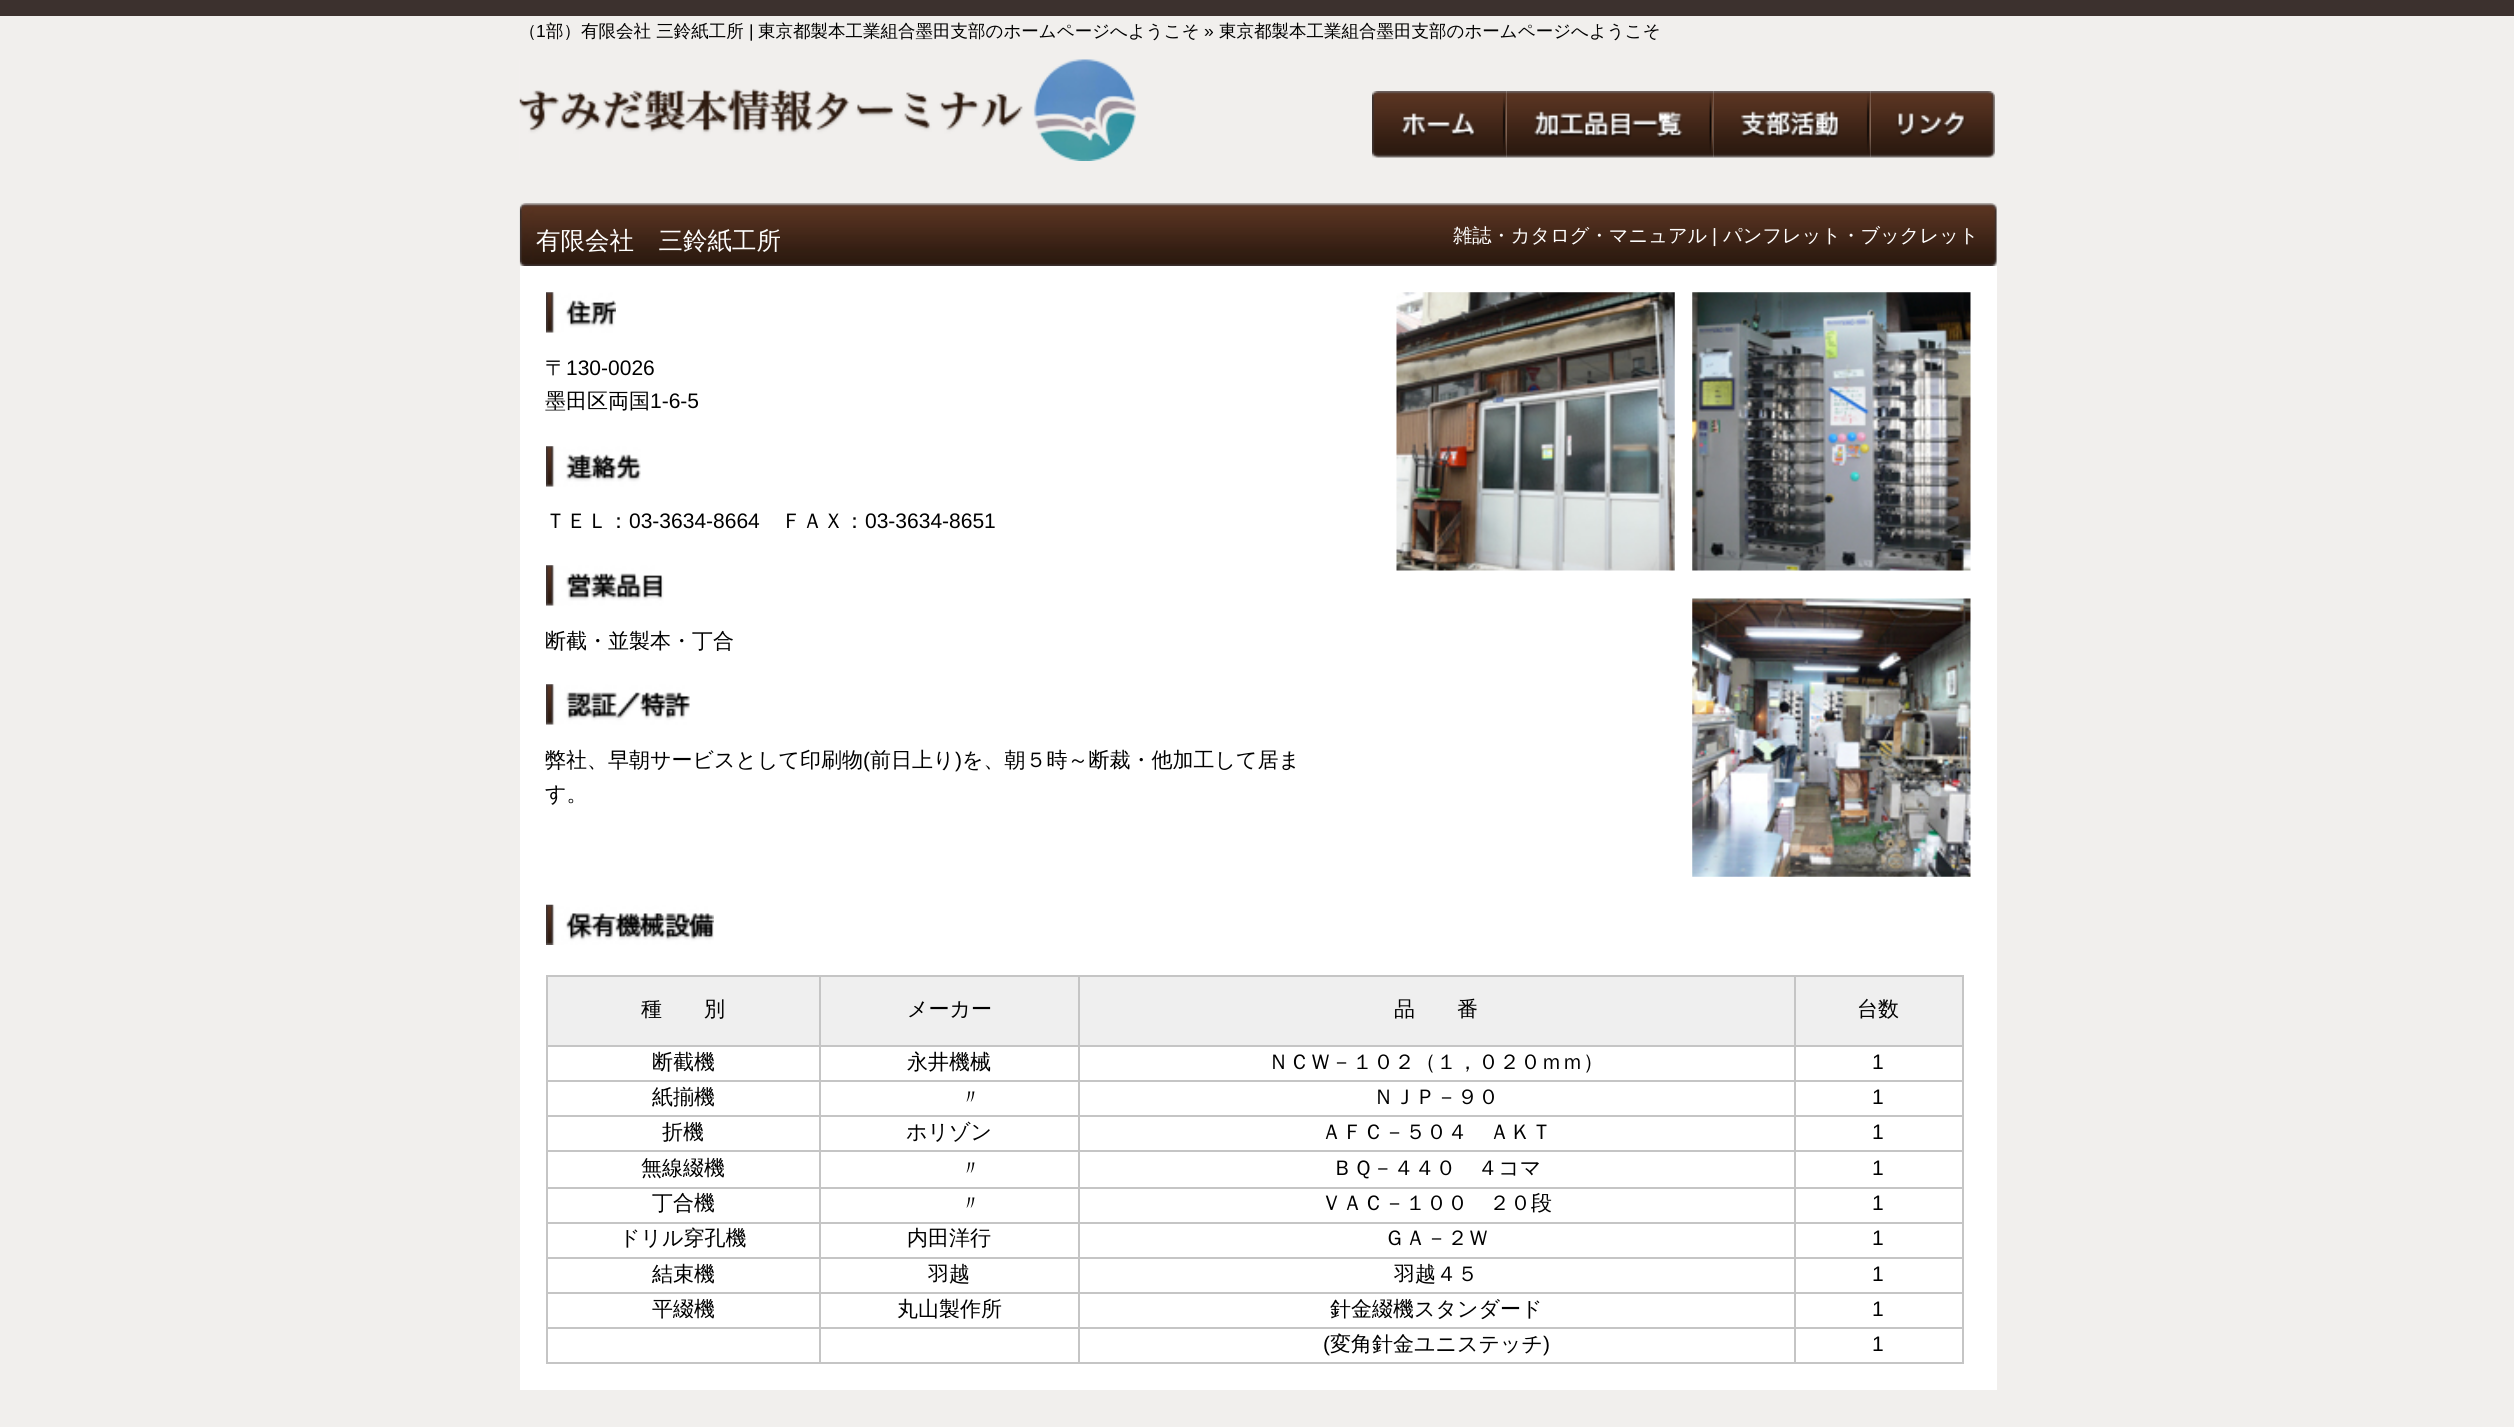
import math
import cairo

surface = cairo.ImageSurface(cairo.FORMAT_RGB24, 2514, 1427)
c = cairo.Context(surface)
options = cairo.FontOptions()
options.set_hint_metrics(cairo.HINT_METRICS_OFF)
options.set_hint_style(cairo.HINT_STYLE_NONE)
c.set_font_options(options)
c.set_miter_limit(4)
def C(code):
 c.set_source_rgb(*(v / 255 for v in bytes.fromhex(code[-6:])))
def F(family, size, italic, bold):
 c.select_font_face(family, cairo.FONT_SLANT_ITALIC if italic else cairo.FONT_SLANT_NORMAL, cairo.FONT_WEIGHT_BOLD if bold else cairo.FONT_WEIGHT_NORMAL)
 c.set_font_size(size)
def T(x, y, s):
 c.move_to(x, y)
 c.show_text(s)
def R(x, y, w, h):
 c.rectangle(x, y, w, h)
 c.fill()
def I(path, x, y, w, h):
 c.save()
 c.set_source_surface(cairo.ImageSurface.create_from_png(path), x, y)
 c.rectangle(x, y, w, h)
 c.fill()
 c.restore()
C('f1efed')
c.paint()
C('3c312e')
R(0,0,2514,16)
F('WenQuanYi Zen Hei Medium',17.5,0,0)
C('000000')
T(519,37,'（')
F('Liberation Sans',17.5,0,0)
T(536,37,'1')
F('WenQuanYi Zen Hei Medium',17.5,0,0)
T(546,37,'部）有限会社 三鈴紙工所')
F('Liberation Sans',17.5,0,0)
T(749,37,'|')
F('WenQuanYi Zen Hei Medium',17.5,0,0)
T(758,37,'東京都製本工業組合墨田支部のホームページへようこそ')
F('Liberation Sans',17.5,0,0)
T(1204,37,'»')
F('WenQuanYi Zen Hei Medium',17.5,0,0)
T(1219,37,'東京都製本工業組合墨田支部のホームページへようこそ')
I('1.png',519,59,617,102)
I('2.png',1372,91,135,67)
I('3.png',1506,91,208,67)
I('4.png',1713,91,158,67)
I('5.png',1870,91,125,67)
I('6.png',519,203,1478,63)
F('WenQuanYi Zen Hei Medium',24.5,0,0)
C('ffffff')
T(536,249,'有限会社　三鈴紙工所')
F('WenQuanYi Zen Hei Medium',19.25,0,0)
T(1453,242,'雑誌・カタログ・マニュアル')
F('Liberation Sans',19.25,0,0)
T(1712,242,'|')
F('WenQuanYi Zen Hei Medium',19.25,0,0)
T(1723,242,'パンフレット・ブックレット')
R(520,266,1477,1124)
I('7.png',546,292,70,41)
F('WenQuanYi Zen Hei Medium',21,0,0)
C('000000')
T(545,375,'〒')
F('Liberation Sans',21,0,0)
T(566,375,'130-0026')
F('WenQuanYi Zen Hei Medium',21,0,0)
T(545,408,'墨田区両国')
F('Liberation Sans',21,0,0)
T(650,408,'1-6-5')
I('8.png',546,446,95,41)
F('WenQuanYi Zen Hei Medium',21,0,0)
T(545,528,'ＴＥＬ：')
F('Liberation Sans',21,0,0)
T(629,528,'03-3634-8664')
F('WenQuanYi Zen Hei Medium',21,0,0)
T(781,528,'ＦＡＸ：')
F('Liberation Sans',21,0,0)
T(865,528,'03-3634-8651')
I('9.png',546,565,118,41)
F('WenQuanYi Zen Hei Medium',21,0,0)
T(545,648,'断截・並製本・丁合')
I('10.png',546,684,144,41)
T(545,767,'弊社、早朝サービスとして印刷物')
F('Liberation Sans',21,0,0)
T(863,767,'(')
F('WenQuanYi Zen Hei Medium',21,0,0)
T(870,767,'前日上り')
F('Liberation Sans',21,0,0)
T(955,767,')')
F('WenQuanYi Zen Hei Medium',21,0,0)
T(962,767,'を、朝５時～断裁・他加工して居ま')
T(545,801,'す。')
I('11.png',1396,292,279,279)
I('12.png',1692,292,279,279)
I('13.png',1692,598,279,279)
I('14.png',546,904,168,41)
C('c5c5c5')
R(546,975,1418,2)
R(1962,975,2,388)
R(546,1362,1418,2)
R(546,975,2,388)
C('efefef')
R(548,977,271,68)
C('000000')
T(641,1016,'種　　別')
C('efefef')
R(821,977,257,68)
C('c5c5c5')
R(1794,1045,170,2)
R(1794,1080,170,2)
R(1794,1115,170,2)
R(1794,1150,170,2)
R(1794,1187,170,2)
R(1794,1222,170,2)
R(1794,1257,170,2)
R(1794,1292,170,2)
R(1794,1327,170,2)
R(1794,1327,2,36)
R(1078,1327,718,2)
R(1794,1292,2,36)
R(1078,1292,718,2)
R(1794,1257,2,36)
R(1078,1257,718,2)
R(1794,1222,2,36)
R(1078,1222,718,2)
R(1794,1187,2,36)
R(1078,1187,718,2)
R(1794,1150,2,38)
R(1078,1150,718,2)
R(1794,1115,2,37)
R(1078,1115,718,2)
R(1794,1080,2,37)
R(1078,1080,718,2)
R(1794,1045,2,37)
R(1078,1045,718,2)
R(1078,1327,2,36)
R(819,1327,261,2)
R(1078,1292,2,36)
R(819,1292,261,2)
R(1078,1257,2,36)
R(819,1257,261,2)
R(1078,1222,2,36)
R(819,1222,261,2)
R(1078,1187,2,36)
R(819,1187,261,2)
R(1078,1150,2,38)
R(819,1150,261,2)
R(1078,1115,2,37)
R(819,1115,261,2)
R(1078,1080,2,37)
R(819,1080,261,2)
R(1078,1045,2,37)
R(819,1045,261,2)
R(819,1327,2,36)
R(546,1327,275,2)
R(819,1292,2,36)
R(546,1292,275,2)
R(819,1257,2,36)
R(546,1257,275,2)
R(819,1222,2,36)
R(546,1222,275,2)
R(819,1187,2,36)
R(546,1187,275,2)
R(819,1150,2,38)
R(546,1150,275,2)
R(819,1115,2,37)
R(546,1115,275,2)
R(819,1080,2,37)
R(546,1080,275,2)
R(819,1045,2,37)
R(546,1045,275,2)
R(819,975,2,72)
C('000000')
T(907,1016,'メーカー')
C('efefef')
R(1080,977,714,68)
C('c5c5c5')
R(1078,975,2,72)
C('000000')
T(1394,1016,'品　　番')
C('efefef')
R(1796,977,166,68)
C('c5c5c5')
R(1794,975,2,72)
C('000000')
T(1857,1016,'台数')
T(652,1069,'断截機')
T(907,1069,'永井機械')
T(1268,1069,'ＮＣＷ－１０２（１，０２０ｍｍ）')
F('Liberation Sans',21,0,0)
T(1872,1069,'1')
F('WenQuanYi Zen Hei Medium',21,0,0)
T(652,1104,'紙揃機')
T(960,1104,'〃')
T(1373,1104,'ＮＪＰ－９０')
F('Liberation Sans',21,0,0)
T(1872,1104,'1')
F('WenQuanYi Zen Hei Medium',21,0,0)
T(662,1139,'折機')
T(906,1139,'ホリゾン')
T(1321,1139,'ＡＦＣ－５０４　ＡＫＴ')
F('Liberation Sans',21,0,0)
T(1872,1139,'1')
F('WenQuanYi Zen Hei Medium',21,0,0)
T(641,1175,'無線綴機')
T(960,1175,'〃')
T(1332,1175,'ＢＱ－４４０　４コマ')
F('Liberation Sans',21,0,0)
T(1872,1175,'1')
F('WenQuanYi Zen Hei Medium',21,0,0)
T(652,1210,'丁合機')
T(960,1210,'〃')
T(1321,1210,'ＶＡＣ－１００　２０段')
F('Liberation Sans',21,0,0)
T(1872,1210,'1')
F('WenQuanYi Zen Hei Medium',21,0,0)
T(619,1245,'ドリル穿孔機')
T(907,1245,'内田洋行')
T(1384,1245,'ＧＡ－２Ｗ')
F('Liberation Sans',21,0,0)
T(1872,1245,'1')
F('WenQuanYi Zen Hei Medium',21,0,0)
T(652,1281,'結束機')
T(928,1281,'羽越')
T(1394,1281,'羽越４５')
F('Liberation Sans',21,0,0)
T(1872,1281,'1')
F('WenQuanYi Zen Hei Medium',21,0,0)
T(652,1316,'平綴機')
T(897,1316,'丸山製作所')
T(1330,1316,'針金綴機スタンダード')
F('Liberation Sans',21,0,0)
T(1872,1316,'1')
T(1323,1351,'(')
F('WenQuanYi Zen Hei Medium',21,0,0)
T(1330,1351,'変角針金ユニステッチ')
F('Liberation Sans',21,0,0)
T(1543,1351,')')
T(1872,1351,'1')
surface.write_to_png('o.png')
